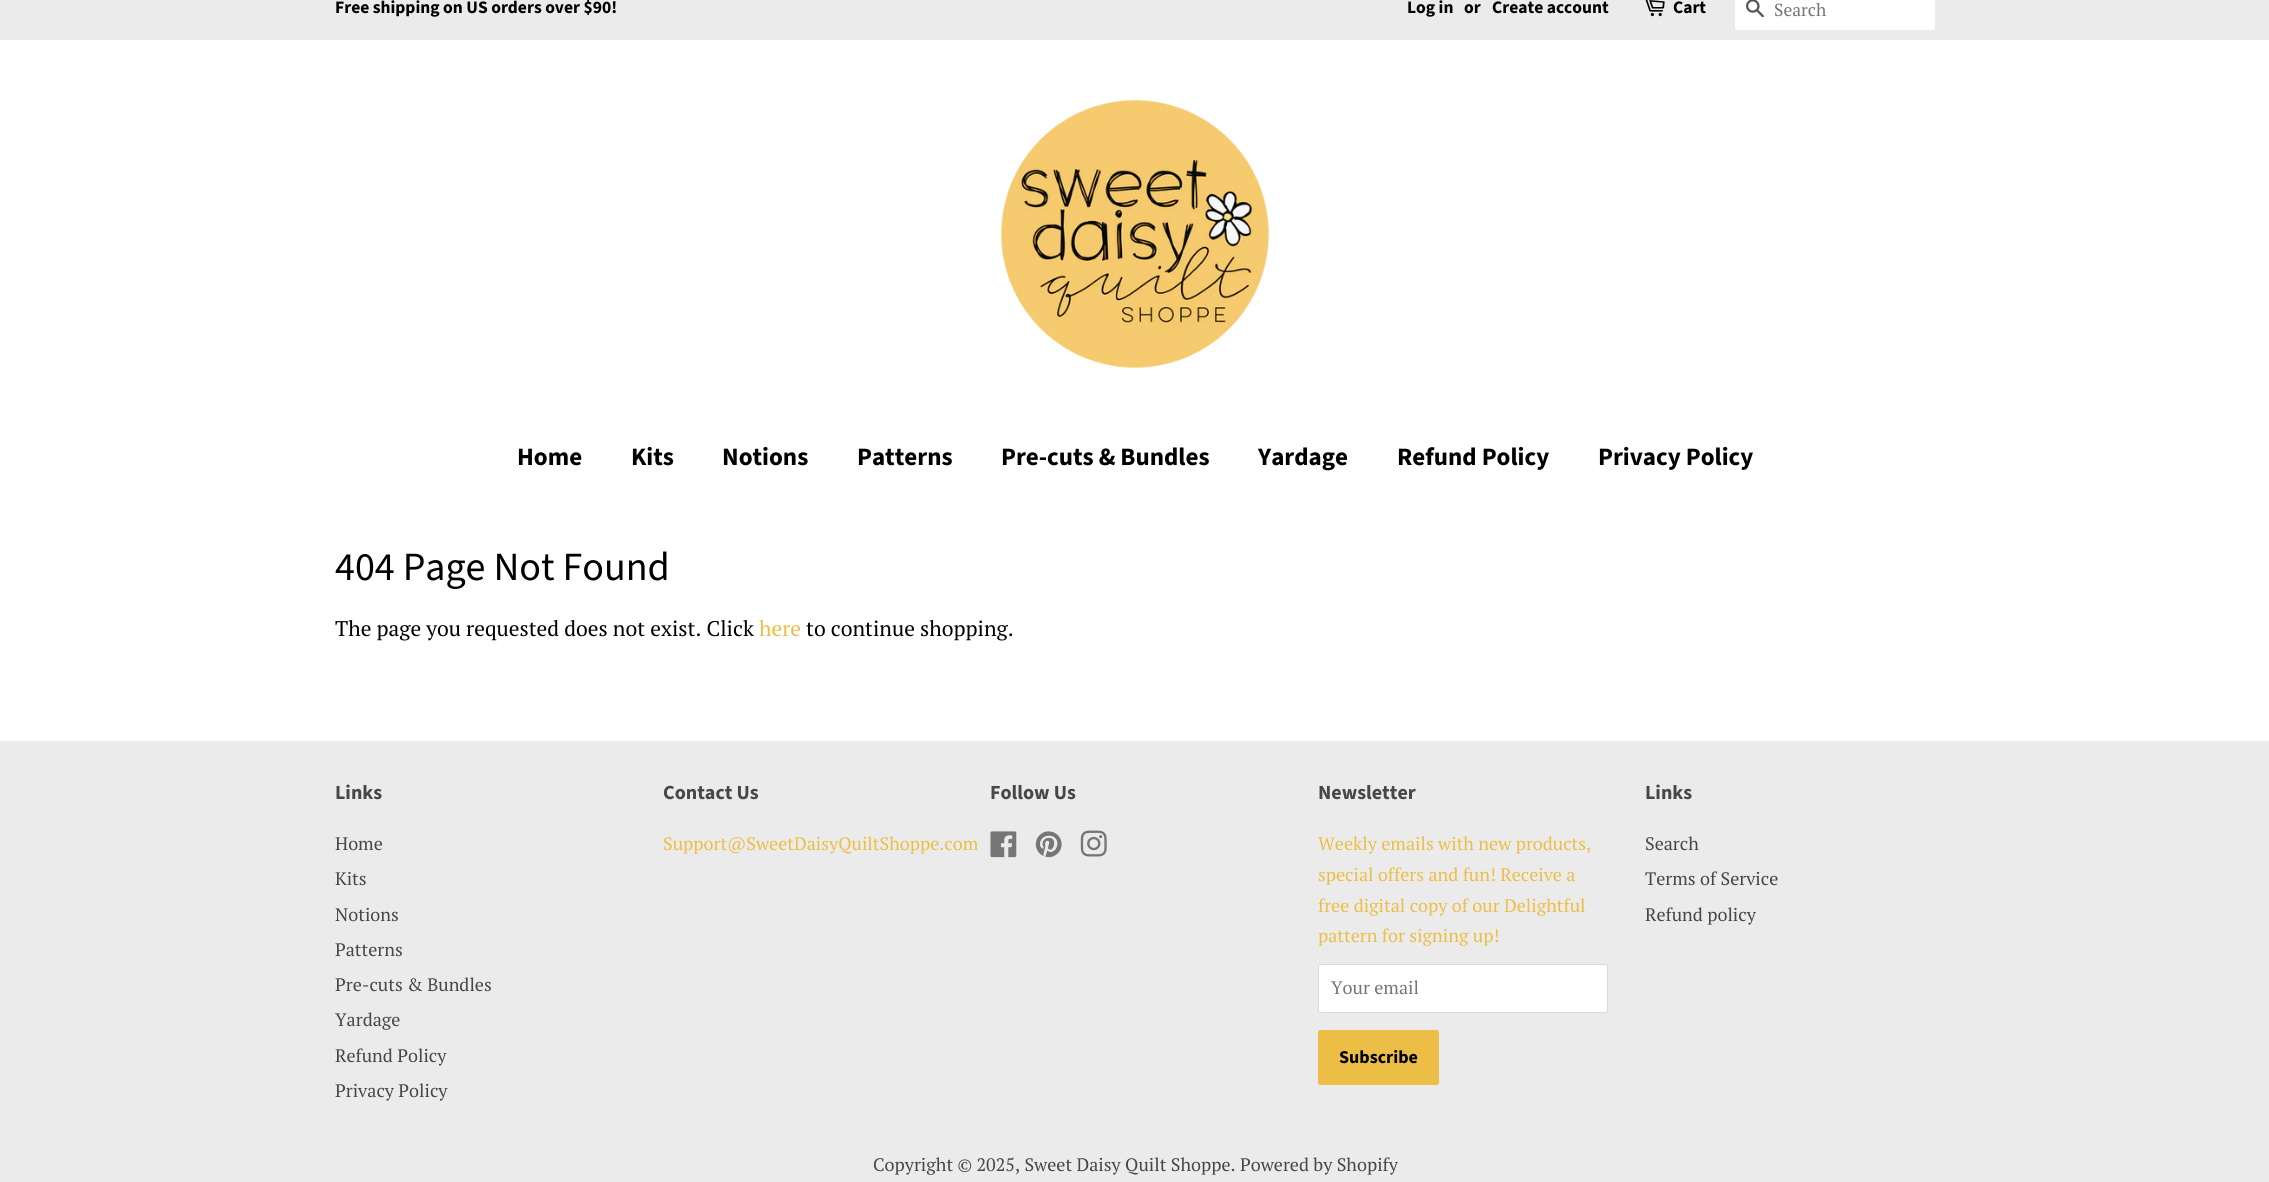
import math
import cairo

surface = cairo.ImageSurface(cairo.FORMAT_RGB24, 2269, 1182)
c = cairo.Context(surface)
options = cairo.FontOptions()
options.set_hint_metrics(cairo.HINT_METRICS_OFF)
options.set_hint_style(cairo.HINT_STYLE_NONE)
c.set_font_options(options)
c.set_miter_limit(4)
def C(code):
 c.set_source_rgb(*(v / 255 for v in bytes.fromhex(code[-6:])))
def F(family, size, italic, bold):
 c.select_font_face(family, cairo.FONT_SLANT_ITALIC if italic else cairo.FONT_SLANT_NORMAL, cairo.FONT_WEIGHT_BOLD if bold else cairo.FONT_WEIGHT_NORMAL)
 c.set_font_size(size)
def T(x, y, s):
 c.move_to(x, y)
 c.show_text(s)
def R(x, y, w, h):
 c.rectangle(x, y, w, h)
 c.fill()
def Q(x, y, w, h, r):
 c.new_sub_path()
 for i, (u, v) in enumerate([(x + w - r, y + h - r), (x + r, y + h - r), (x + r, y + r), (x + w - r, y + r)]):
  c.arc(u, v, r, i * math.pi / 2, (i + 1) * math.pi / 2)
 c.close_path()
def I(path, x, y, w, h):
 c.save()
 c.set_source_surface(cairo.ImageSurface.create_from_png(path), x, y)
 c.rectangle(x, y, w, h)
 c.fill()
 c.restore()
C('ffffff')
c.paint()
C('ebebeb')
R(0,0,2269,40)
F('Source Sans Pro',17.5,0,1)
C('000000')
T(335,13,'Free shipping on US orders over $90!')
T(1407,13,'Log in')
T(1464,13,'or')
T(1492,13,'Create account')
I('1.png',1645,0,20,17)
T(1673,13,'Cart')
C('ffffff')
Q(1735,-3,200,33,2.5)
c.fill()
I('2.png',1746,0,18,18)
F('PT Serif',17.5,0,0)
C('757575')
T(1774,16,'Search')
I('3.png',1000,99,269,269)
F('Source Sans Pro',25,0,1)
C('000000')
T(517,465,'Home')
T(631,465,'Kits')
T(722,465,'Notions')
T(857,465,'Patterns')
T(1001,465,'Pre-cuts & Bundles')
T(1258,465,'Yardage')
T(1397,465,'Refund Policy')
T(1598,465,'Privacy Policy')
F('Source Sans Pro',40,0,0)
T(335,580,'404 Page Not Found')
F('PT Serif',21.25,0,0)
T(335,636,'The page you requested does not exist. Click')
C('edbe46')
T(759,636,'here')
C('000000')
T(806,636,'to continue shopping.')
C('eaebea')
R(0,741,2269,441)
F('Source Sans Pro',20,0,1)
C('494646')
T(335,799,'Links')
F('PT Serif',18.05,0,0)
T(335,850,'Home')
T(335,885,'Kits')
T(335,921,'Notions')
T(335,956,'Patterns')
T(335,991,'Pre-cuts & Bundles')
T(335,1026,'Yardage')
T(335,1062,'Refund Policy')
T(335,1097,'Privacy Policy')
F('Source Sans Pro',20,0,1)
T(663,799,'Contact Us')
F('PT Serif',18.05,0,0)
C('edbe46')
T(663,850,'Support@SweetDaisyQuiltShoppe.com')
F('Source Sans Pro',20,0,1)
C('494646')
T(990,799,'Follow Us')
I('4.png',990,831,27,27)
I('5.png',1035,831,27,27)
I('6.png',1080,830,27,27)
T(1318,799,'Newsletter')
F('PT Serif',18.05,0,0)
C('edbe46')
T(1318,850,'Weekly emails with new products,')
T(1318,881,'special offers and fun! Receive a')
T(1318,912,'free digital copy of our Delightful')
T(1318,942,'pattern for signing up!')
C('ffffff')
Q(1318,964,290,49,2.5)
c.fill()
Q(1318.5,964.5,289,48,2)
c.set_source_rgba(0,0,0,0.15)
c.set_line_width(1)
c.stroke()
C('757575')
T(1331,994,'Your email')
C('edbe46')
Q(1318,1030,121,55,2.5)
c.fill()
F('Source Sans Pro',18.05,0,1)
C('000000')
T(1339,1063,'Subscribe')
F('Source Sans Pro',20,0,1)
C('494646')
T(1645,799,'Links')
F('PT Serif',18.05,0,0)
T(1645,850,'Search')
T(1645,885,'Terms of Service')
T(1645,921,'Refund policy')
T(873,1171,'Copyright © 2025, Sweet Daisy Quilt Shoppe. Powered by Shopify')
surface.write_to_png('o.png')
